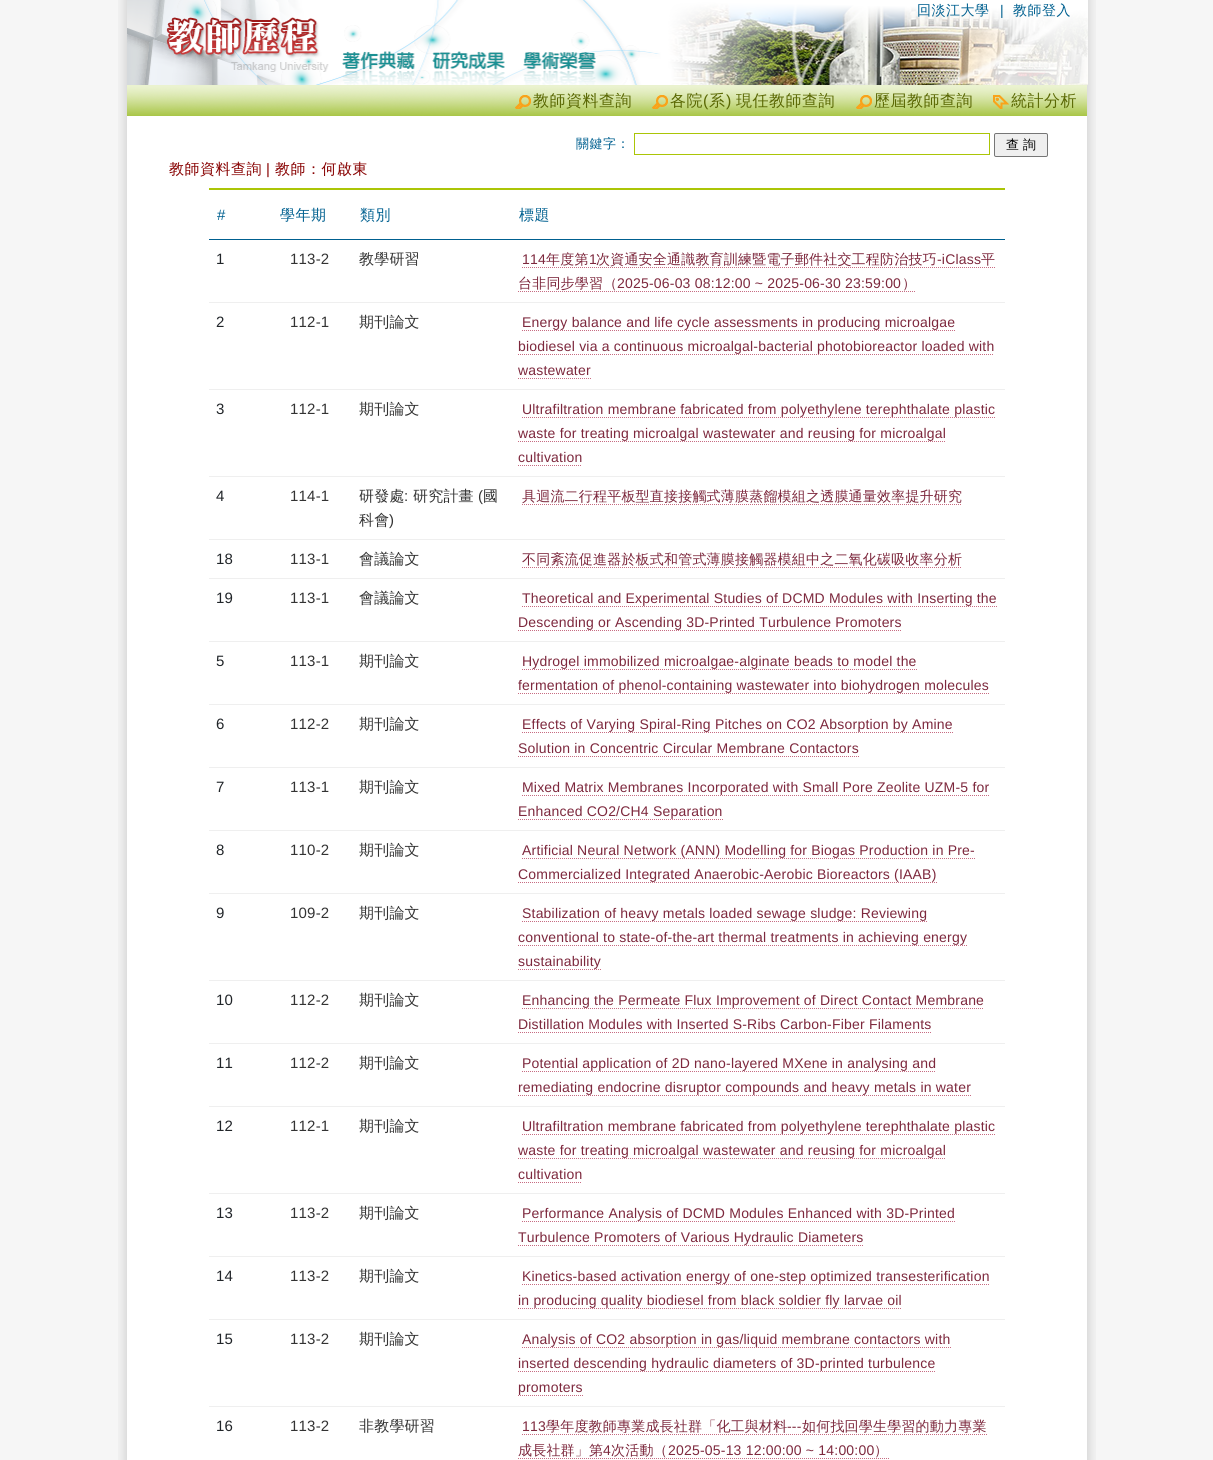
import math
import cairo

surface = cairo.ImageSurface(cairo.FORMAT_RGB24, 1213, 1460)
c = cairo.Context(surface)
options = cairo.FontOptions()
options.set_hint_metrics(cairo.HINT_METRICS_OFF)
options.set_hint_style(cairo.HINT_STYLE_NONE)
c.set_font_options(options)
c.set_miter_limit(4)
def C(code):
 c.set_source_rgb(*(v / 255 for v in bytes.fromhex(code[-6:])))
def F(family, size, italic, bold):
 c.select_font_face(family, cairo.FONT_SLANT_ITALIC if italic else cairo.FONT_SLANT_NORMAL, cairo.FONT_WEIGHT_BOLD if bold else cairo.FONT_WEIGHT_NORMAL)
 c.set_font_size(size)
def T(x, y, s):
 c.move_to(x, y)
 c.show_text(s)
def L(x, y, s, letter, word):
 c.move_to(x, y)
 for ch in s:
  c.show_text(ch)
  c.rel_move_to(letter + word * (ch == ' '), 0)
def R(x, y, w, h):
 c.rectangle(x, y, w, h)
 c.fill()
def Q(x, y, w, h, r):
 c.new_sub_path()
 for i, (u, v) in enumerate([(x + w - r, y + h - r), (x + r, y + h - r), (x + r, y + r), (x + w - r, y + r)]):
  c.arc(u, v, r, i * math.pi / 2, (i + 1) * math.pi / 2)
 c.close_path()
def I(path, x, y, w, h):
 c.save()
 c.set_source_surface(cairo.ImageSurface.create_from_png(path), x, y)
 c.rectangle(x, y, w, h)
 c.fill()
 c.restore()
C('f6f6f6')
c.paint()
I('1.png',118,0,978,85)
I('2.png',127,0,961,85)
F('WenQuanYi Zen Hei Medium',14,0,0)
C('006090')
L(917,15,'回淡江大學',.5,0)
F('Liberation Sans',14,0,0)
L(1000,15,'|',.5,0)
F('WenQuanYi Zen Hei Medium',14,0,0)
L(1013,15,'教師登入',.5,0)
I('3.png',118,85,978,31)
I('4.png',515,95,16,14)
F('WenQuanYi Zen Hei Medium',16,0,0)
C('5a6803')
L(533,106,'教師資料查詢',.5,0)
I('5.png',652,95,16,14)
L(670,106,'各院',.5,0)
F('Liberation Sans',16,0,0)
L(703,106,'(',.5,0)
F('WenQuanYi Zen Hei Medium',16,0,0)
L(709,106,'系',.5,0)
F('Liberation Sans',16,0,0)
L(726,106,')',.5,0)
F('WenQuanYi Zen Hei Medium',16,0,0)
L(736,106,'現任教師查詢',.5,0)
I('6.png',856,95,16,14)
L(874,106,'歷屆教師查詢',.5,0)
I('7.png',993,95,16,14)
L(1011,106,'統計分析',.5,0)
I('8.png',118,116,978,1344)
F('WenQuanYi Zen Hei Medium',13,0,0)
C('006090')
L(576,148,'關鍵字：',.5,0)
c.rectangle(634.5,133.5,355,21)
C('abc507')
c.set_line_width(1)
c.stroke()
C('efefef')
Q(994.5,133.5,53,23,1.5)
c.fill_preserve()
C('767676')
c.stroke()
C('000000')
T(1006,149,'查 詢')
F('WenQuanYi Zen Hei Medium',15,0,0)
C('880202')
L(169,174,'教師資料查詢',.5,0)
F('Liberation Sans',15,0,0)
L(266,174,'|',.5,0)
F('WenQuanYi Zen Hei Medium',15,0,0)
L(275,174,'教師：何啟東',.5,0)
F('Liberation Sans',15,0,0)
C('006090')
L(217,220,'#',.5,0)
F('WenQuanYi Zen Hei Medium',15,0,0)
L(280,220,'學年期',.5,0)
L(360,220,'類別',.5,0)
R(209,239,796,1)
C('abc507')
R(209,188,796,2)
C('006090')
L(519,220,'標題',.5,0)
F('Liberation Sans',15,0,0)
C('212529')
L(216,264,'1',.2,0)
C('333333')
L(290,264,'113-2',.2,0)
F('WenQuanYi Zen Hei Medium',15,0,0)
L(359,264,'教學研習',.2,0)
C('efefef')
R(209,302,796,1)
F('Liberation Sans',14,0,0)
C('7d283d')
L(522,264,'114',.2,0)
F('WenQuanYi Zen Hei Medium',14,0,0)
L(546,264,'年度第',.2,0)
F('Liberation Sans',14,0,0)
L(589,264,'1',.2,0)
F('WenQuanYi Zen Hei Medium',14,0,0)
L(596,264,'次資通安全通識教育訓練暨電子郵件社交工程防治技巧',.2,0)
F('Liberation Sans',14,0,0)
L(937,264,'-iClass',.2,0)
F('WenQuanYi Zen Hei Medium',14,0,0)
L(981,264,'平',.2,0)
c.new_path()
c.move_to(522,267.5)
c.line_to(996,267.5)
C('c76c82')
c.set_dash([1,1])
c.stroke()
C('7d283d')
L(518,288,'台非同步學習（',.2,0)
F('Liberation Sans',14,0,0)
L(617,288,'2025-06-03 08:12:00 ~ 2025-06-30 23:59:00',.2,0)
F('WenQuanYi Zen Hei Medium',14,0,0)
L(902,288,'）',.2,0)
c.new_path()
c.move_to(518,291.5)
c.line_to(916,291.5)
C('c76c82')
c.stroke()
F('Liberation Sans',15,0,0)
C('212529')
L(216,327,'2',.2,0)
C('333333')
L(290,327,'112-1',.2,0)
F('WenQuanYi Zen Hei Medium',15,0,0)
L(359,327,'期刊論文',.2,0)
C('efefef')
R(209,389,796,1)
F('Liberation Sans',14,0,0)
C('7d283d')
L(522,327,'Energy balance and life cycle assessments in producing microalgae',.2,0)
c.new_path()
c.move_to(522,330.5)
c.line_to(955,330.5)
C('c76c82')
c.stroke()
C('7d283d')
L(518,351,'biodiesel via a continuous microalgal-bacterial photobioreactor loaded with',.2,0)
c.new_path()
c.move_to(518,354.5)
c.line_to(994,354.5)
C('c76c82')
c.stroke()
C('7d283d')
L(518,375,'wastewater',.2,0)
c.new_path()
c.move_to(518,378.5)
c.line_to(591,378.5)
C('c76c82')
c.stroke()
F('Liberation Sans',15,0,0)
C('212529')
L(216,414,'3',.2,0)
C('333333')
L(290,414,'112-1',.2,0)
F('WenQuanYi Zen Hei Medium',15,0,0)
L(359,414,'期刊論文',.2,0)
C('efefef')
R(209,476,796,1)
F('Liberation Sans',14,0,0)
C('7d283d')
L(522,414,'Ultrafiltration membrane fabricated from polyethylene terephthalate plastic',.2,0)
c.new_path()
c.move_to(522,417.5)
c.line_to(995,417.5)
C('c76c82')
c.stroke()
C('7d283d')
L(518,438,'waste for treating microalgal wastewater and reusing for microalgal',.2,0)
c.new_path()
c.move_to(518,441.5)
c.line_to(946,441.5)
C('c76c82')
c.stroke()
C('7d283d')
L(518,462,'cultivation',.2,0)
c.new_path()
c.move_to(518,465.5)
c.line_to(582,465.5)
C('c76c82')
c.stroke()
F('Liberation Sans',15,0,0)
C('212529')
L(216,501,'4',.2,0)
C('333333')
L(290,501,'114-1',.2,0)
F('WenQuanYi Zen Hei Medium',15,0,0)
L(359,501,'研發處',.2,0)
F('Liberation Sans',15,0,0)
L(404,501,':',.2,0)
F('WenQuanYi Zen Hei Medium',15,0,0)
L(413,501,'研究計畫',.2,0)
F('Liberation Sans',15,0,0)
L(478,501,'(',.2,0)
F('WenQuanYi Zen Hei Medium',15,0,0)
L(483,501,'國',.2,0)
L(359,525,'科會',.2,0)
F('Liberation Sans',15,0,0)
L(389,525,')',.2,0)
C('efefef')
R(209,539,796,1)
F('WenQuanYi Zen Hei Medium',14,0,0)
C('7d283d')
L(522,501,'具迴流二行程平板型直接接觸式薄膜蒸餾模組之透膜通量效率提升研究',.2,0)
c.new_path()
c.move_to(522,504.5)
c.line_to(962,504.5)
C('c76c82')
c.stroke()
F('Liberation Sans',15,0,0)
C('212529')
L(216,564,'18',.2,0)
C('333333')
L(290,564,'113-1',.2,0)
F('WenQuanYi Zen Hei Medium',15,0,0)
L(359,564,'會議論文',.2,0)
C('efefef')
R(209,578,796,1)
F('WenQuanYi Zen Hei Medium',14,0,0)
C('7d283d')
L(522,564,'不同紊流促進器於板式和管式薄膜接觸器模組中之二氧化碳吸收率分析',.2,0)
c.new_path()
c.move_to(522,567.5)
c.line_to(962,567.5)
C('c76c82')
c.stroke()
F('Liberation Sans',15,0,0)
C('212529')
L(216,603,'19',.2,0)
C('333333')
L(290,603,'113-1',.2,0)
F('WenQuanYi Zen Hei Medium',15,0,0)
L(359,603,'會議論文',.2,0)
C('efefef')
R(209,641,796,1)
F('Liberation Sans',14,0,0)
C('7d283d')
L(522,603,'Theoretical and Experimental Studies of DCMD Modules with Inserting the',.2,0)
c.new_path()
c.move_to(522,606.5)
c.line_to(997,606.5)
C('c76c82')
c.stroke()
C('7d283d')
L(518,627,'Descending or Ascending 3D-Printed Turbulence Promoters',.2,0)
c.new_path()
c.move_to(518,630.5)
c.line_to(902,630.5)
C('c76c82')
c.stroke()
F('Liberation Sans',15,0,0)
C('212529')
L(216,666,'5',.2,0)
C('333333')
L(290,666,'113-1',.2,0)
F('WenQuanYi Zen Hei Medium',15,0,0)
L(359,666,'期刊論文',.2,0)
C('efefef')
R(209,704,796,1)
F('Liberation Sans',14,0,0)
C('7d283d')
L(522,666,'Hydrogel immobilized microalgae-alginate beads to model the',.2,0)
c.new_path()
c.move_to(522,669.5)
c.line_to(917,669.5)
C('c76c82')
c.stroke()
C('7d283d')
L(518,690,'fermentation of phenol-containing wastewater into biohydrogen molecules',.2,0)
c.new_path()
c.move_to(518,693.5)
c.line_to(989,693.5)
C('c76c82')
c.stroke()
F('Liberation Sans',15,0,0)
C('212529')
L(216,729,'6',.2,0)
C('333333')
L(290,729,'112-2',.2,0)
F('WenQuanYi Zen Hei Medium',15,0,0)
L(359,729,'期刊論文',.2,0)
C('efefef')
R(209,767,796,1)
F('Liberation Sans',14,0,0)
C('7d283d')
L(522,729,'Effects of Varying Spiral-Ring Pitches on CO2 Absorption by Amine',.2,0)
c.new_path()
c.move_to(522,732.5)
c.line_to(953,732.5)
C('c76c82')
c.stroke()
C('7d283d')
L(518,753,'Solution in Concentric Circular Membrane Contactors',.2,0)
c.new_path()
c.move_to(518,756.5)
c.line_to(859,756.5)
C('c76c82')
c.stroke()
F('Liberation Sans',15,0,0)
C('212529')
L(216,792,'7',.2,0)
C('333333')
L(290,792,'113-1',.2,0)
F('WenQuanYi Zen Hei Medium',15,0,0)
L(359,792,'期刊論文',.2,0)
C('efefef')
R(209,830,796,1)
F('Liberation Sans',14,0,0)
C('7d283d')
L(522,792,'Mixed Matrix Membranes Incorporated with Small Pore Zeolite UZM-5 for',.2,0)
c.new_path()
c.move_to(522,795.5)
c.line_to(989,795.5)
C('c76c82')
c.stroke()
C('7d283d')
L(518,816,'Enhanced CO2/CH4 Separation',.2,0)
c.new_path()
c.move_to(518,819.5)
c.line_to(723,819.5)
C('c76c82')
c.stroke()
F('Liberation Sans',15,0,0)
C('212529')
L(216,855,'8',.2,0)
C('333333')
L(290,855,'110-2',.2,0)
F('WenQuanYi Zen Hei Medium',15,0,0)
L(359,855,'期刊論文',.2,0)
C('efefef')
R(209,893,796,1)
F('Liberation Sans',14,0,0)
C('7d283d')
L(522,855,'Artificial Neural Network (ANN) Modelling for Biogas Production in Pre-',.2,0)
c.new_path()
c.move_to(522,858.5)
c.line_to(975,858.5)
C('c76c82')
c.stroke()
C('7d283d')
L(518,879,'Commercialized Integrated Anaerobic-Aerobic Bioreactors (IAAB)',.2,0)
c.new_path()
c.move_to(518,882.5)
c.line_to(937,882.5)
C('c76c82')
c.stroke()
F('Liberation Sans',15,0,0)
C('212529')
L(216,918,'9',.2,0)
C('333333')
L(290,918,'109-2',.2,0)
F('WenQuanYi Zen Hei Medium',15,0,0)
L(359,918,'期刊論文',.2,0)
C('efefef')
R(209,980,796,1)
F('Liberation Sans',14,0,0)
C('7d283d')
L(522,918,'Stabilization of heavy metals loaded sewage sludge: Reviewing',.2,0)
c.new_path()
c.move_to(522,921.5)
c.line_to(927,921.5)
C('c76c82')
c.stroke()
C('7d283d')
L(518,942,'conventional to state-of-the-art thermal treatments in achieving energy',.2,0)
c.new_path()
c.move_to(518,945.5)
c.line_to(967,945.5)
C('c76c82')
c.stroke()
C('7d283d')
L(518,966,'sustainability',.2,0)
c.new_path()
c.move_to(518,969.5)
c.line_to(601,969.5)
C('c76c82')
c.stroke()
F('Liberation Sans',15,0,0)
C('212529')
L(216,1005,'10',.2,0)
C('333333')
L(290,1005,'112-2',.2,0)
F('WenQuanYi Zen Hei Medium',15,0,0)
L(359,1005,'期刊論文',.2,0)
C('efefef')
R(209,1043,796,1)
F('Liberation Sans',14,0,0)
C('7d283d')
L(522,1005,'Enhancing the Permeate Flux Improvement of Direct Contact Membrane',.2,0)
c.new_path()
c.move_to(522,1008.5)
c.line_to(984,1008.5)
C('c76c82')
c.stroke()
C('7d283d')
L(518,1029,'Distillation Modules with Inserted S-Ribs Carbon-Fiber Filaments',.2,0)
c.new_path()
c.move_to(518,1032.5)
c.line_to(931,1032.5)
C('c76c82')
c.stroke()
F('Liberation Sans',15,0,0)
C('212529')
L(216,1068,'11',.2,0)
C('333333')
L(290,1068,'112-2',.2,0)
F('WenQuanYi Zen Hei Medium',15,0,0)
L(359,1068,'期刊論文',.2,0)
C('efefef')
R(209,1106,796,1)
F('Liberation Sans',14,0,0)
C('7d283d')
L(522,1068,'Potential application of 2D nano-layered MXene in analysing and',.2,0)
c.new_path()
c.move_to(522,1071.5)
c.line_to(936,1071.5)
C('c76c82')
c.stroke()
C('7d283d')
L(518,1092,'remediating endocrine disruptor compounds and heavy metals in water',.2,0)
c.new_path()
c.move_to(518,1095.5)
c.line_to(971,1095.5)
C('c76c82')
c.stroke()
F('Liberation Sans',15,0,0)
C('212529')
L(216,1131,'12',.2,0)
C('333333')
L(290,1131,'112-1',.2,0)
F('WenQuanYi Zen Hei Medium',15,0,0)
L(359,1131,'期刊論文',.2,0)
C('efefef')
R(209,1193,796,1)
F('Liberation Sans',14,0,0)
C('7d283d')
L(522,1131,'Ultrafiltration membrane fabricated from polyethylene terephthalate plastic',.2,0)
c.new_path()
c.move_to(522,1134.5)
c.line_to(995,1134.5)
C('c76c82')
c.stroke()
C('7d283d')
L(518,1155,'waste for treating microalgal wastewater and reusing for microalgal',.2,0)
c.new_path()
c.move_to(518,1158.5)
c.line_to(946,1158.5)
C('c76c82')
c.stroke()
C('7d283d')
L(518,1179,'cultivation',.2,0)
c.new_path()
c.move_to(518,1182.5)
c.line_to(582,1182.5)
C('c76c82')
c.stroke()
F('Liberation Sans',15,0,0)
C('212529')
L(216,1218,'13',.2,0)
C('333333')
L(290,1218,'113-2',.2,0)
F('WenQuanYi Zen Hei Medium',15,0,0)
L(359,1218,'期刊論文',.2,0)
C('efefef')
R(209,1256,796,1)
F('Liberation Sans',14,0,0)
C('7d283d')
L(522,1218,'Performance Analysis of DCMD Modules Enhanced with 3D-Printed',.2,0)
c.new_path()
c.move_to(522,1221.5)
c.line_to(955,1221.5)
C('c76c82')
c.stroke()
C('7d283d')
L(518,1242,'Turbulence Promoters of Various Hydraulic Diameters',.2,0)
c.new_path()
c.move_to(518,1245.5)
c.line_to(864,1245.5)
C('c76c82')
c.stroke()
F('Liberation Sans',15,0,0)
C('212529')
L(216,1281,'14',.2,0)
C('333333')
L(290,1281,'113-2',.2,0)
F('WenQuanYi Zen Hei Medium',15,0,0)
L(359,1281,'期刊論文',.2,0)
C('efefef')
R(209,1319,796,1)
F('Liberation Sans',14,0,0)
C('7d283d')
L(522,1281,'Kinetics-based activation energy of one-step optimized transesterification',.2,0)
c.new_path()
c.move_to(522,1284.5)
c.line_to(990,1284.5)
C('c76c82')
c.stroke()
C('7d283d')
L(518,1305,'in producing quality biodiesel from black soldier fly larvae oil',.2,0)
c.new_path()
c.move_to(518,1308.5)
c.line_to(902,1308.5)
C('c76c82')
c.stroke()
F('Liberation Sans',15,0,0)
C('212529')
L(216,1344,'15',.2,0)
C('333333')
L(290,1344,'113-2',.2,0)
F('WenQuanYi Zen Hei Medium',15,0,0)
L(359,1344,'期刊論文',.2,0)
C('efefef')
R(209,1406,796,1)
F('Liberation Sans',14,0,0)
C('7d283d')
L(522,1344,'Analysis of CO2 absorption in gas/liquid membrane contactors with',.2,0)
c.new_path()
c.move_to(522,1347.5)
c.line_to(951,1347.5)
C('c76c82')
c.stroke()
C('7d283d')
L(518,1368,'inserted descending hydraulic diameters of 3D-printed turbulence',.2,0)
c.new_path()
c.move_to(518,1371.5)
c.line_to(935,1371.5)
C('c76c82')
c.stroke()
C('7d283d')
L(518,1392,'promoters',.2,0)
c.new_path()
c.move_to(518,1395.5)
c.line_to(583,1395.5)
C('c76c82')
c.stroke()
F('Liberation Sans',15,0,0)
C('212529')
L(216,1431,'16',.2,0)
C('333333')
L(290,1431,'113-2',.2,0)
F('WenQuanYi Zen Hei Medium',15,0,0)
L(359,1431,'非教學研習',.2,0)
F('Liberation Sans',14,0,0)
C('7d283d')
L(522,1431,'113',.2,0)
F('WenQuanYi Zen Hei Medium',14,0,0)
L(546,1431,'學年度教師專業成長社群「化工與材料',.2,0)
F('Liberation Sans',14,0,0)
L(787,1431,'---',.2,0)
c.new_path()
c.move_to(522,1434.5)
c.line_to(987,1434.5)
C('c76c82')
c.stroke()
F('WenQuanYi Zen Hei Medium',14,0,0)
C('7d283d')
L(802,1431,'如何找回學生學習的動力專業',.2,0)
L(518,1455,'成長社群」第',.2,0)
F('Liberation Sans',14,0,0)
L(603,1455,'4',.2,0)
F('WenQuanYi Zen Hei Medium',14,0,0)
L(611,1455,'次活動（',.2,0)
F('Liberation Sans',14,0,0)
L(668,1455,'2025-05-13 12:00:00 ~ 14:00:00',.2,0)
F('WenQuanYi Zen Hei Medium',14,0,0)
L(874,1455,'）',.2,0)
c.new_path()
c.move_to(518,1458.5)
c.line_to(889,1458.5)
C('c76c82')
c.stroke()
surface.write_to_png('o.png')
